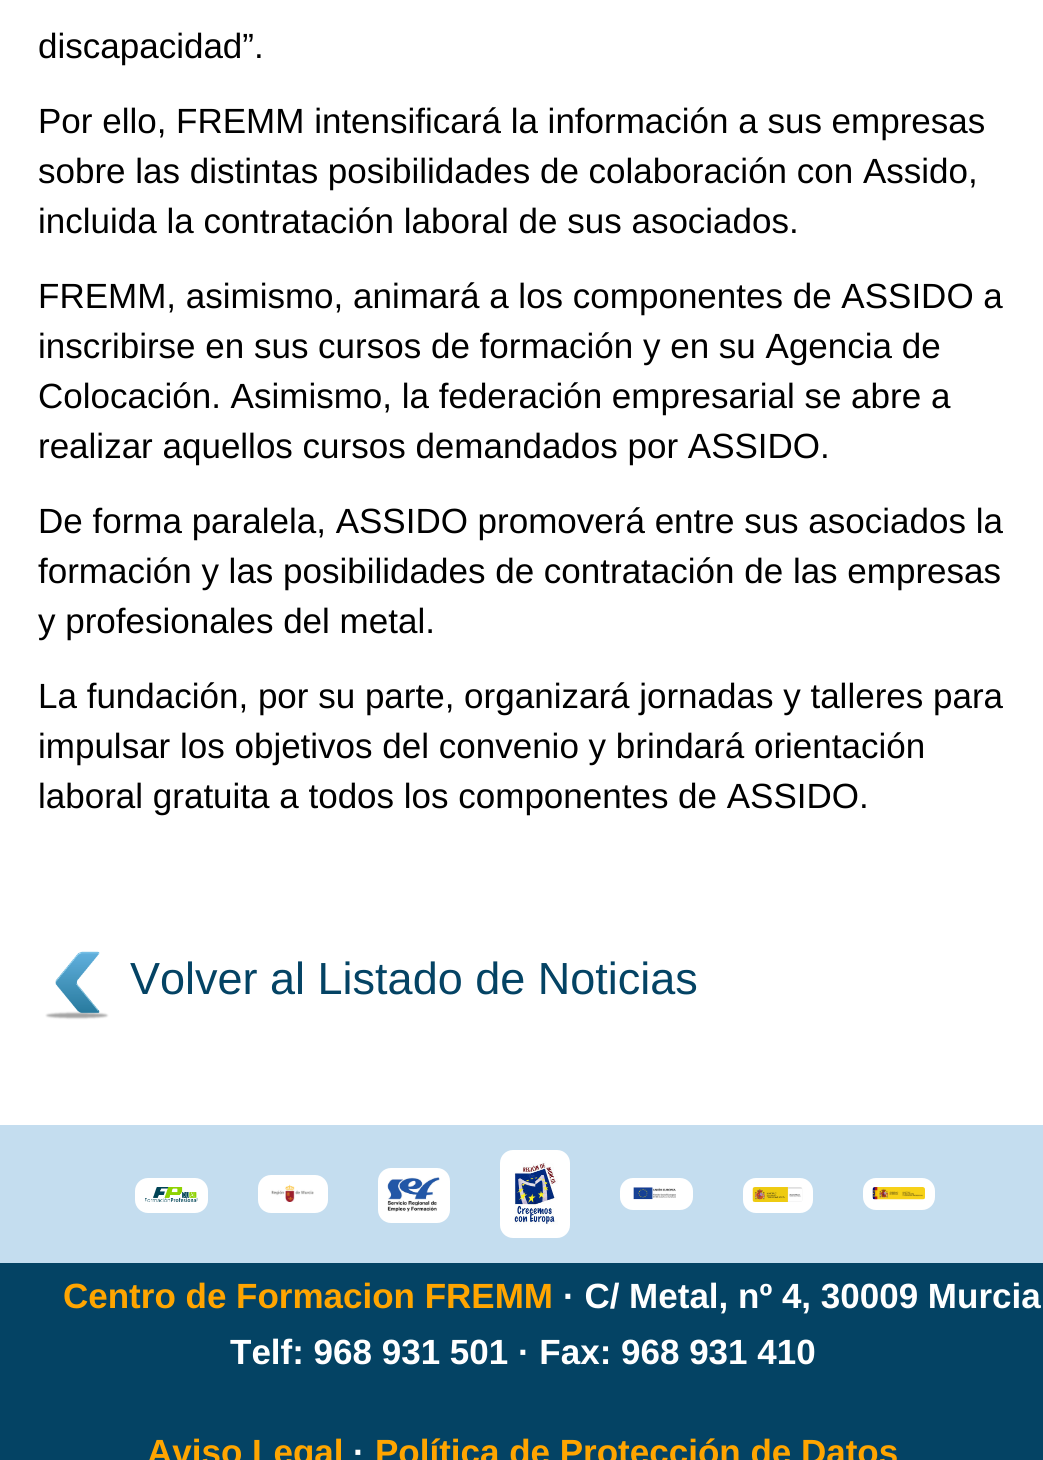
import math
import cairo

surface = cairo.ImageSurface(cairo.FORMAT_RGB24, 1043, 1460)
c = cairo.Context(surface)
options = cairo.FontOptions()
options.set_hint_metrics(cairo.HINT_METRICS_OFF)
options.set_hint_style(cairo.HINT_STYLE_NONE)
c.set_font_options(options)
c.set_miter_limit(4)
def C(code):
 c.set_source_rgb(*(v / 255 for v in bytes.fromhex(code[-6:])))
def F(family, size, italic, bold):
 c.select_font_face(family, cairo.FONT_SLANT_ITALIC if italic else cairo.FONT_SLANT_NORMAL, cairo.FONT_WEIGHT_BOLD if bold else cairo.FONT_WEIGHT_NORMAL)
 c.set_font_size(size)
def T(x, y, s):
 c.move_to(x, y)
 c.show_text(s)
def R(x, y, w, h):
 c.rectangle(x, y, w, h)
 c.fill()
def Q(x, y, w, h, r):
 c.new_sub_path()
 for i, (u, v) in enumerate([(x + w - r, y + h - r), (x + r, y + h - r), (x + r, y + r), (x + w - r, y + r)]):
  c.arc(u, v, r, i * math.pi / 2, (i + 1) * math.pi / 2)
 c.close_path()
def I(path, x, y, w, h):
 c.save()
 c.set_source_surface(cairo.ImageSurface.create_from_png(path), x, y)
 c.rectangle(x, y, w, h)
 c.fill()
 c.restore()
C('ffffff')
c.paint()
F('Liberation Sans',35,0,0)
C('000000')
T(38,58,'discapacidad”.')
T(38,133,'Por ello, FREMM intensificará la información a sus empresas')
T(38,183,'sobre las distintas posibilidades de colaboración con Assido,')
T(38,233,'incluida la contratación laboral de sus asociados.')
T(38,308,'FREMM, asimismo, animará a los componentes de ASSIDO a')
T(38,358,'inscribirse en sus cursos de formación y en su Agencia de')
T(38,408,'Colocación. Asimismo, la federación empresarial se abre a')
T(38,458,'realizar aquellos cursos demandados por ASSIDO.')
T(38,533,'De forma paralela, ASSIDO promoverá entre sus asociados la')
T(38,583,'formación y las posibilidades de contratación de las empresas')
T(38,633,'y profesionales del metal.')
T(38,708,'La fundación, por su parte, organizará jornadas y talleres para')
T(38,758,'impulsar los objetivos del convenio y brindará orientación')
T(38,808,'laboral gratuita a todos los componentes de ASSIDO.')
I('1.png',45,951,64,69)
F('Liberation Sans',45,0,0)
C('044364')
T(130,994,'Volver al Listado de Noticias')
C('c4ddef')
R(0,1125,1043,138)
C('ffffff')
Q(500,1150,70,88,13)
c.fill()
Q(258,1175,70,38,13)
c.fill()
Q(378,1168,72,55,13)
c.fill()
I('2.png',514,1161,44,64)
Q(135,1178,73,35,13)
c.fill()
I('3.png',271,1184,43,18)
I('4.png',387,1177,53,35)
Q(620,1178,73,32,13)
c.fill()
Q(743,1178,70,35,13)
c.fill()
Q(863,1178,72,32,13)
c.fill()
I('5.png',145,1187,53,15)
I('6.png',633,1187,43,13)
I('7.png',752,1187,51,15)
I('8.png',872,1187,53,13)
C('044364')
R(0,1263,1043,197)
F('Liberation Sans',35,0,1)
C('ffa500')
T(63,1308,'Centro de Formacion FREMM')
C('ffffff')
T(563,1308,'· C/ Metal, nº 4, 30009 Murcia')
T(230,1364,'Telf: 968 931 501 · Fax: 968 931 410')
C('ffa500')
T(147,1464,'Aviso Legal')
C('ffffff')
T(353,1464,'·')
C('ffa500')
T(375,1464,'Política de Protección de Datos')
surface.write_to_png('o.png')
